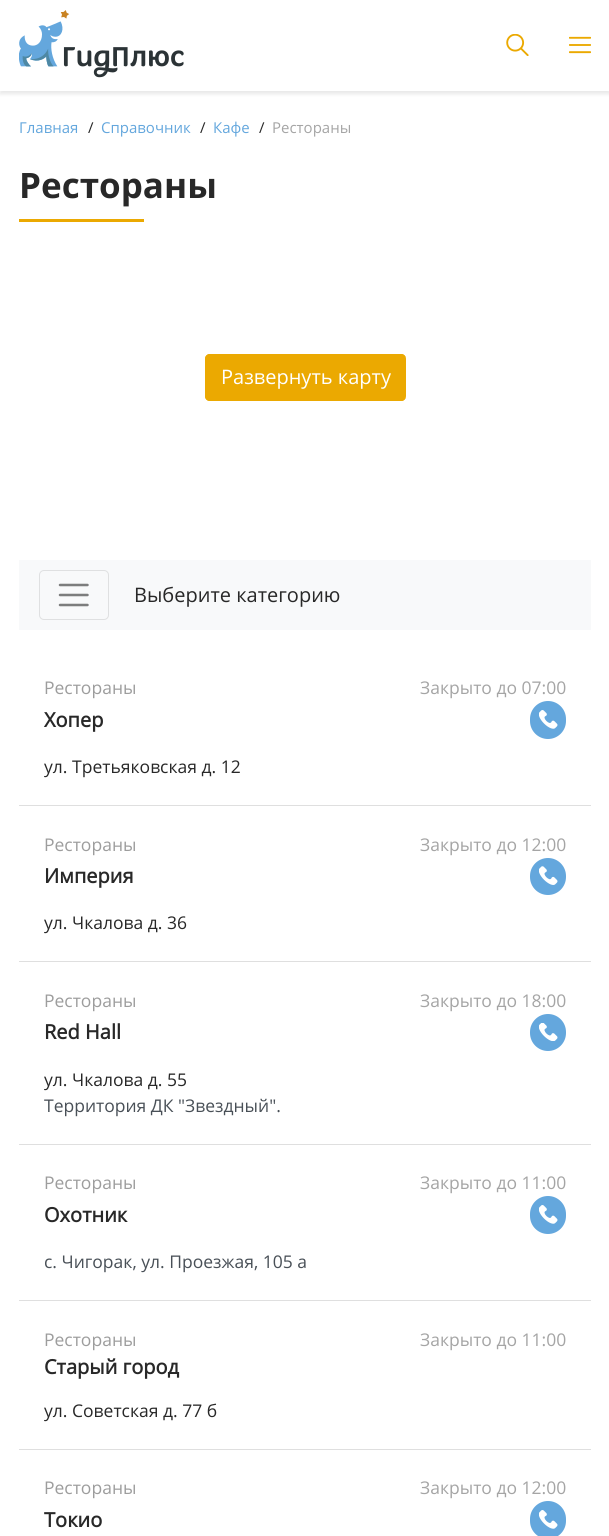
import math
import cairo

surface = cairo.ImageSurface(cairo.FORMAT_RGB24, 609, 1536)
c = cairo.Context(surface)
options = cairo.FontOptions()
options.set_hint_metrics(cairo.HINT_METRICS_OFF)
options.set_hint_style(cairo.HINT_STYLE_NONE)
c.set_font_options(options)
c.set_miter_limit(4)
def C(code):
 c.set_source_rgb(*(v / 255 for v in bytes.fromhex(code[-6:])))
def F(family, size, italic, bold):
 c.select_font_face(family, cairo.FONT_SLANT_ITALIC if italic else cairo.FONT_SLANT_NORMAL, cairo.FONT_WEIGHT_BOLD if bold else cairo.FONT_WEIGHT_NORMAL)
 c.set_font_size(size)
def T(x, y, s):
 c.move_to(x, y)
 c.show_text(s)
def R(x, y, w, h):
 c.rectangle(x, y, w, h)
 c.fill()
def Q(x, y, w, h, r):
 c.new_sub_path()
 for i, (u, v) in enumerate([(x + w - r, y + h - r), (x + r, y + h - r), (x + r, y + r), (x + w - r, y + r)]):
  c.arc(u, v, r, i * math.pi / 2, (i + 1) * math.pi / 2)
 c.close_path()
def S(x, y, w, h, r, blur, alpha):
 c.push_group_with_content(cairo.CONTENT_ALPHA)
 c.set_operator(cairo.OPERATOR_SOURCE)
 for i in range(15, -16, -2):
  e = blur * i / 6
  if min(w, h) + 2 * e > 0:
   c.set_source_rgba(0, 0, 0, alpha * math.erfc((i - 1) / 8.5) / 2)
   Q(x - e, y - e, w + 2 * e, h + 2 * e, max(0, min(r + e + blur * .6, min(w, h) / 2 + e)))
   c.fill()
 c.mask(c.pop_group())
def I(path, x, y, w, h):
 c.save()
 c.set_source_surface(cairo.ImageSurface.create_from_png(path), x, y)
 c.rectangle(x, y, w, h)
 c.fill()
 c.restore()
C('ffffff')
c.paint()
c.save()
c.rectangle(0,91,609,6)
c.clip()
C('a0a0a0')
S(0,3,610,91,0,2,.25)
c.restore()
I('1.png',19,10,165,68)
I('2.png',506,34,23,22)
I('3.png',569,36,22,18)
F('Open Sans',15,0,0)
C('64a7dd')
T(19,133,'Главная')
C('282828')
T(88,133,'/')
C('64a7dd')
T(101,133,'Справочник')
C('282828')
T(200,133,'/')
C('64a7dd')
T(213,133,'Кафе')
C('282828')
T(259,133,'/')
C('a5a5a5')
T(272,133,'Рестораны')
F('Open Sans',35,0,1)
C('282828')
T(19,198,'Рестораны')
C('eba901')
R(19,219,125,3)
Q(205,354,201,47,5)
c.fill()
c.set_fill_rule(cairo.FILL_RULE_EVEN_ODD)
c.new_path()
c.move_to(210,354)
c.line_to(401,354)
c.curve_to(404,354,406,356,406,359)
c.line_to(406,396)
c.curve_to(406,399,404,401,401,401)
c.line_to(210,401)
c.curve_to(207,401,205,399,205,396)
c.line_to(205,359)
c.curve_to(205,356,207,354,210,354)
c.close_path()
c.move_to(210,355)
c.line_to(401,355)
c.curve_to(404,355,406,357,406,359)
c.line_to(406,396)
c.curve_to(406,398,404,400,401,400)
c.line_to(210,400)
c.curve_to(208,400,206,398,206,396)
c.line_to(206,359)
c.curve_to(206,357,208,355,210,355)
c.close_path()
c.fill()
F('Open Sans',20,0,0)
C('ffffff')
T(221,384,'Развернуть карту')
C('f8f9fa')
R(19,560,572,70)
Q(39.5,570.5,69,49,4.5)
C('dfe0e1')
c.set_line_width(1)
c.stroke()
c.new_path()
c.move_to(60,585)
c.line_to(87.5,585)
c.move_to(60,595)
c.line_to(87.5,595)
c.move_to(60,605)
c.line_to(87.5,605)
C('7c7d7d')
c.set_line_width(2.5)
c.set_line_cap(cairo.LINE_CAP_ROUND)
c.stroke()
C('282828')
T(134,602,'Выберите категорию')
C('dfdfdf')
R(19,805,572,1)
F('Open Sans',17.5,0,0)
C('9d9d9d')
T(44,694,'Рестораны')
C('a5a5a5')
T(420,694,'Закрыто до 07:00')
F('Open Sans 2',20,0,1)
C('282828')
T(44,727,'Хопер')
C('64a7dd')
Q(530,701,36,38,18)
c.fill()
I('4.png',539,710,19,19)
F('Open Sans',17.5,0,0)
C('282828')
T(44,773,'ул. Третьяковская д. 12')
C('dfdfdf')
R(19,961,572,1)
C('9d9d9d')
T(44,851,'Рестораны')
C('a5a5a5')
T(420,851,'Закрыто до 12:00')
F('Open Sans 2',20,0,1)
C('282828')
T(44,883,'Империя')
C('64a7dd')
Q(530,858,36,37,18)
c.fill()
I('5.png',539,866,19,19)
F('Open Sans',17.5,0,0)
C('282828')
T(44,929,'ул. Чкалова д. 36')
C('dfdfdf')
R(19,1144,572,1)
C('9d9d9d')
T(44,1007,'Рестораны')
C('a5a5a5')
T(420,1007,'Закрыто до 18:00')
F('Open Sans 2',20,0,1)
C('282828')
T(44,1039,'Red Hall')
C('64a7dd')
Q(530,1014,36,37,18)
c.fill()
I('6.png',539,1023,19,18)
F('Open Sans',17.5,0,0)
C('282828')
T(44,1086,'ул. Чкалова д. 55')
C('495057')
T(44,1112,'Территория ДК "Звездный".')
C('dfdfdf')
R(19,1300,572,1)
C('9d9d9d')
T(44,1189,'Рестораны')
C('a5a5a5')
T(420,1189,'Закрыто до 11:00')
F('Open Sans 2',20,0,1)
C('282828')
T(44,1222,'Охотник')
C('64a7dd')
Q(530,1196,36,38,18)
c.fill()
I('4.png',539,1205,19,19)
F('Open Sans',17.5,0,0)
C('495057')
T(44,1268,'с. Чигорак, ул. Проезжая, 105 а')
C('dfdfdf')
R(19,1449,572,1)
C('9d9d9d')
T(44,1346,'Рестораны')
C('a5a5a5')
T(420,1346,'Закрыто до 11:00')
F('Open Sans 2',20,0,1)
C('282828')
T(44,1374,'Старый город')
F('Open Sans',17.5,0,0)
T(44,1417,'ул. Советская д. 77 б')
C('9d9d9d')
T(44,1494,'Рестораны')
C('a5a5a5')
T(420,1494,'Закрыто до 12:00')
F('Open Sans 2',20,0,1)
C('282828')
T(44,1527,'Токио')
C('64a7dd')
Q(530,1501,36,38,18)
c.fill()
I('4.png',539,1510,19,19)
surface.write_to_png('o.png')
